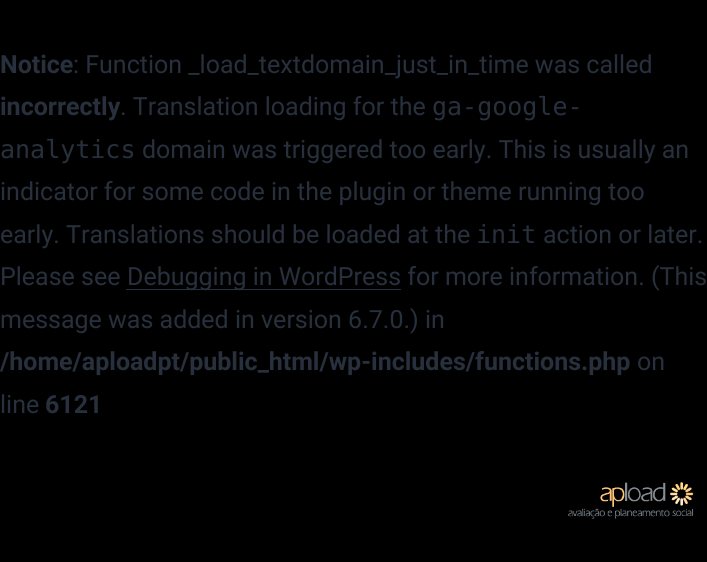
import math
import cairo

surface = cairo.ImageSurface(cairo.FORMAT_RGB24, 707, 562)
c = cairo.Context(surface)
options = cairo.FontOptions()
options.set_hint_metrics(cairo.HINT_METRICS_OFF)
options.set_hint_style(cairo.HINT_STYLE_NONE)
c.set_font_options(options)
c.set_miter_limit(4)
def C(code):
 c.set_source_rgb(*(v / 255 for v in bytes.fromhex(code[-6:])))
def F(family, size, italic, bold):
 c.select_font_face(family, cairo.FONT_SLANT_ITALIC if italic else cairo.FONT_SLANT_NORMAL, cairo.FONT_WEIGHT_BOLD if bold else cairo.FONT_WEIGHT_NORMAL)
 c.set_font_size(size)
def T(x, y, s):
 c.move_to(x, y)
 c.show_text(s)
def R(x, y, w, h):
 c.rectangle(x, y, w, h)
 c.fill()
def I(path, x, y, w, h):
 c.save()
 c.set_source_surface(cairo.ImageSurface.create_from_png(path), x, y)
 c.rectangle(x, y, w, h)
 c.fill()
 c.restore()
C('000000')
c.paint()
F('Roboto',25,0,1)
C('28303d')
T(0,73,'Notice')
F('Roboto',25,0,0)
T(73,73,': Function _load_textdomain_just_in_time was called')
F('Roboto',25,0,1)
T(0,115,'incorrectly')
F('Roboto',25,0,0)
T(120,115,'. Translation loading for the')
F('DejaVu Sans Mono',25,0,0)
T(432,115,'ga-google-')
T(0,158,'analytics')
F('Roboto',25,0,0)
T(142,158,'domain was triggered too early. This is usually an')
T(0,200,'indicator for some code in the plugin or theme running too')
T(0,243,'early. Translations should be loaded at the')
F('DejaVu Sans Mono',25,0,0)
T(476,243,'init')
F('Roboto',25,0,0)
T(543,243,'action or later.')
T(0,285,'Please see')
R(126,289,275,1)
T(127,285,'Debugging in WordPress for more information. (This')
T(0,328,'message was added in version 6.7.0.) in')
F('Roboto',25,0,1)
T(0,370,'/home/aploadpt/public_html/wp-includes/functions.php')
F('Roboto',25,0,0)
T(637,370,'on')
T(0,413,'line')
F('Roboto',25,0,1)
T(45,413,'6121')
I('1.png',568,482,126,37)
surface.write_to_png('o.png')
